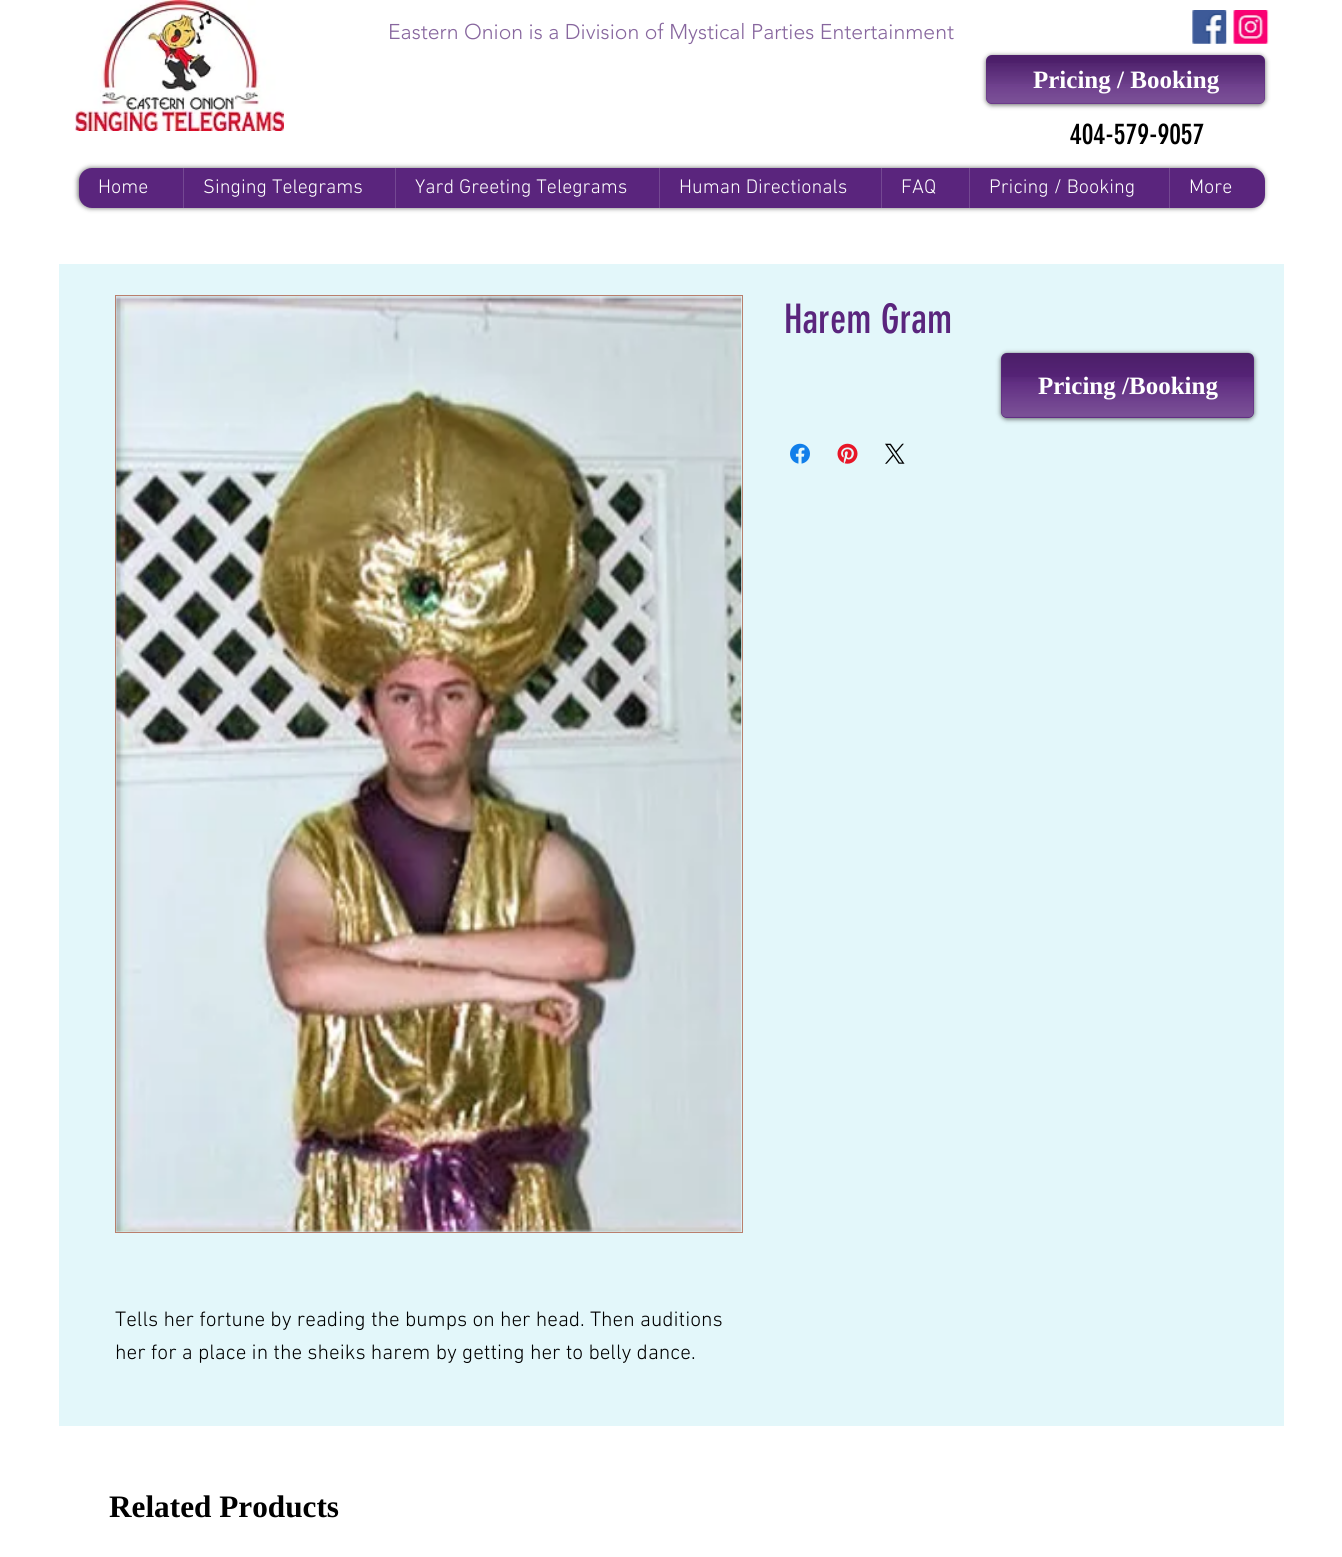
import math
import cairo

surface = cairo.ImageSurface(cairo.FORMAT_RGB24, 1342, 1557)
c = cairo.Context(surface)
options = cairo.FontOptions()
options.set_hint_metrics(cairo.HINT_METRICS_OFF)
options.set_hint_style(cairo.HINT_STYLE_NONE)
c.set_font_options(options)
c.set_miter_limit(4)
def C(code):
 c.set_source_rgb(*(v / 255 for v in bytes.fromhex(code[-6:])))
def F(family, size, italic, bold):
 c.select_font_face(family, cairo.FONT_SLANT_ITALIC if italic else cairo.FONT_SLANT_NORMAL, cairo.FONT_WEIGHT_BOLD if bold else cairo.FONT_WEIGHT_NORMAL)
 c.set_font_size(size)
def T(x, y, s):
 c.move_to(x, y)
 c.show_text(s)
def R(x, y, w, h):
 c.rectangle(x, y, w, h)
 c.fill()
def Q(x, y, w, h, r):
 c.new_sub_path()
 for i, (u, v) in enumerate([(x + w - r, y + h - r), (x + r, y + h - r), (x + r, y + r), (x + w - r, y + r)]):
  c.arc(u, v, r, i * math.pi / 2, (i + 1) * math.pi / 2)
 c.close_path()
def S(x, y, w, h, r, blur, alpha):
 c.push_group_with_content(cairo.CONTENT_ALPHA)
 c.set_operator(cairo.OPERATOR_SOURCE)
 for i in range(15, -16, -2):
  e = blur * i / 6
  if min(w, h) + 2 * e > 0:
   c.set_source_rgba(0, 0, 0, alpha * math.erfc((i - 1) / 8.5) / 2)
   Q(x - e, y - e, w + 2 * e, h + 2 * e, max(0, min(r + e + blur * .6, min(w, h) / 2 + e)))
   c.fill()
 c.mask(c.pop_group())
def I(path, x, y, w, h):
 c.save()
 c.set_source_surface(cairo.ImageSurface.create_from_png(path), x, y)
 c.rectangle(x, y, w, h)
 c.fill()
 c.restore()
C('ffffff')
c.paint()
I('1.png',75,0,209,131)
F('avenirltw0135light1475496 Light',21.25,0,0)
C('87669e')
T(388,39,'Eastern Onion is a Division of Mystical Parties Entertainment')
I('2.png',1192,10,35,34)
I('3.png',1233,10,36,34)
C('000000')
S(986,56,279,49,6,2.5,.6)
C('5a257d')
Q(986,55,279,49,6)
c.fill()
I('4.png',986,55,279,29)
I('5.png',986,63,279,41)
F('Liberation Serif',25,0,1)
C('ffffff')
T(1033,88,'Pricing / Booking')
F('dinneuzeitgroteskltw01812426',28.75,0,0)
C('000000')
T(1070,144,'404-579-9057')
C('000000')
S(78,168,1186,40,13,2.5,.6)
C('5a257d')
Q(79,168,1186,40,13)
c.fill()
F('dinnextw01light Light',20,0,0)
C('ffffff')
T(98,193,'Home')
C('744892')
R(183,168,1,40)
C('ffffff')
T(203,193,'Singing Telegrams')
C('744892')
R(395,168,1,40)
C('ffffff')
T(415,193,'Yard Greeting Telegrams')
C('744892')
R(659,168,1,40)
C('ffffff')
T(679,193,'Human Directionals')
C('744892')
R(881,168,1,40)
C('ffffff')
T(901,193,'FAQ')
C('744892')
R(969,168,1,40)
C('ffffff')
T(989,193,'Pricing / Booking')
C('744892')
R(1169,168,1,40)
C('ffffff')
T(1189,193,'More')
C('e3f7fa')
R(59,264,1225,1162)
F('dinneuzeitgroteskltw01812426',40,0,0)
C('5a257d')
T(784,333,'Harem Gram')
I('6.png',790,443,20,21)
I('7.png',837,443,21,21)
I('8.png',885,443,20,21)
c.rectangle(115.5,295.5,627,937)
C('b97f6d')
c.set_line_width(1)
c.stroke()
I('9.png',116,296,626,936)
F('dinnextw01light Light',21.25,0,0)
C('000000')
T(115,1326,'Tells her fortune by reading the bumps on her head. Then auditions')
T(115,1359,'her for a place in the sheiks harem by getting her to belly dance.')
C('000000')
S(1001,354,253,65,6,2.5,.6)
C('5a257d')
Q(1001,353,253,65,6)
c.fill()
I('10.png',1001,352,253,30)
I('11.png',1001,377,253,41)
F('Liberation Serif',25,0,1)
C('ffffff')
T(1038,394,'Pricing /Booking')
F('Liberation Serif',31.25,0,1)
C('000000')
T(109,1517,'Related Products')
surface.write_to_png('o.png')
